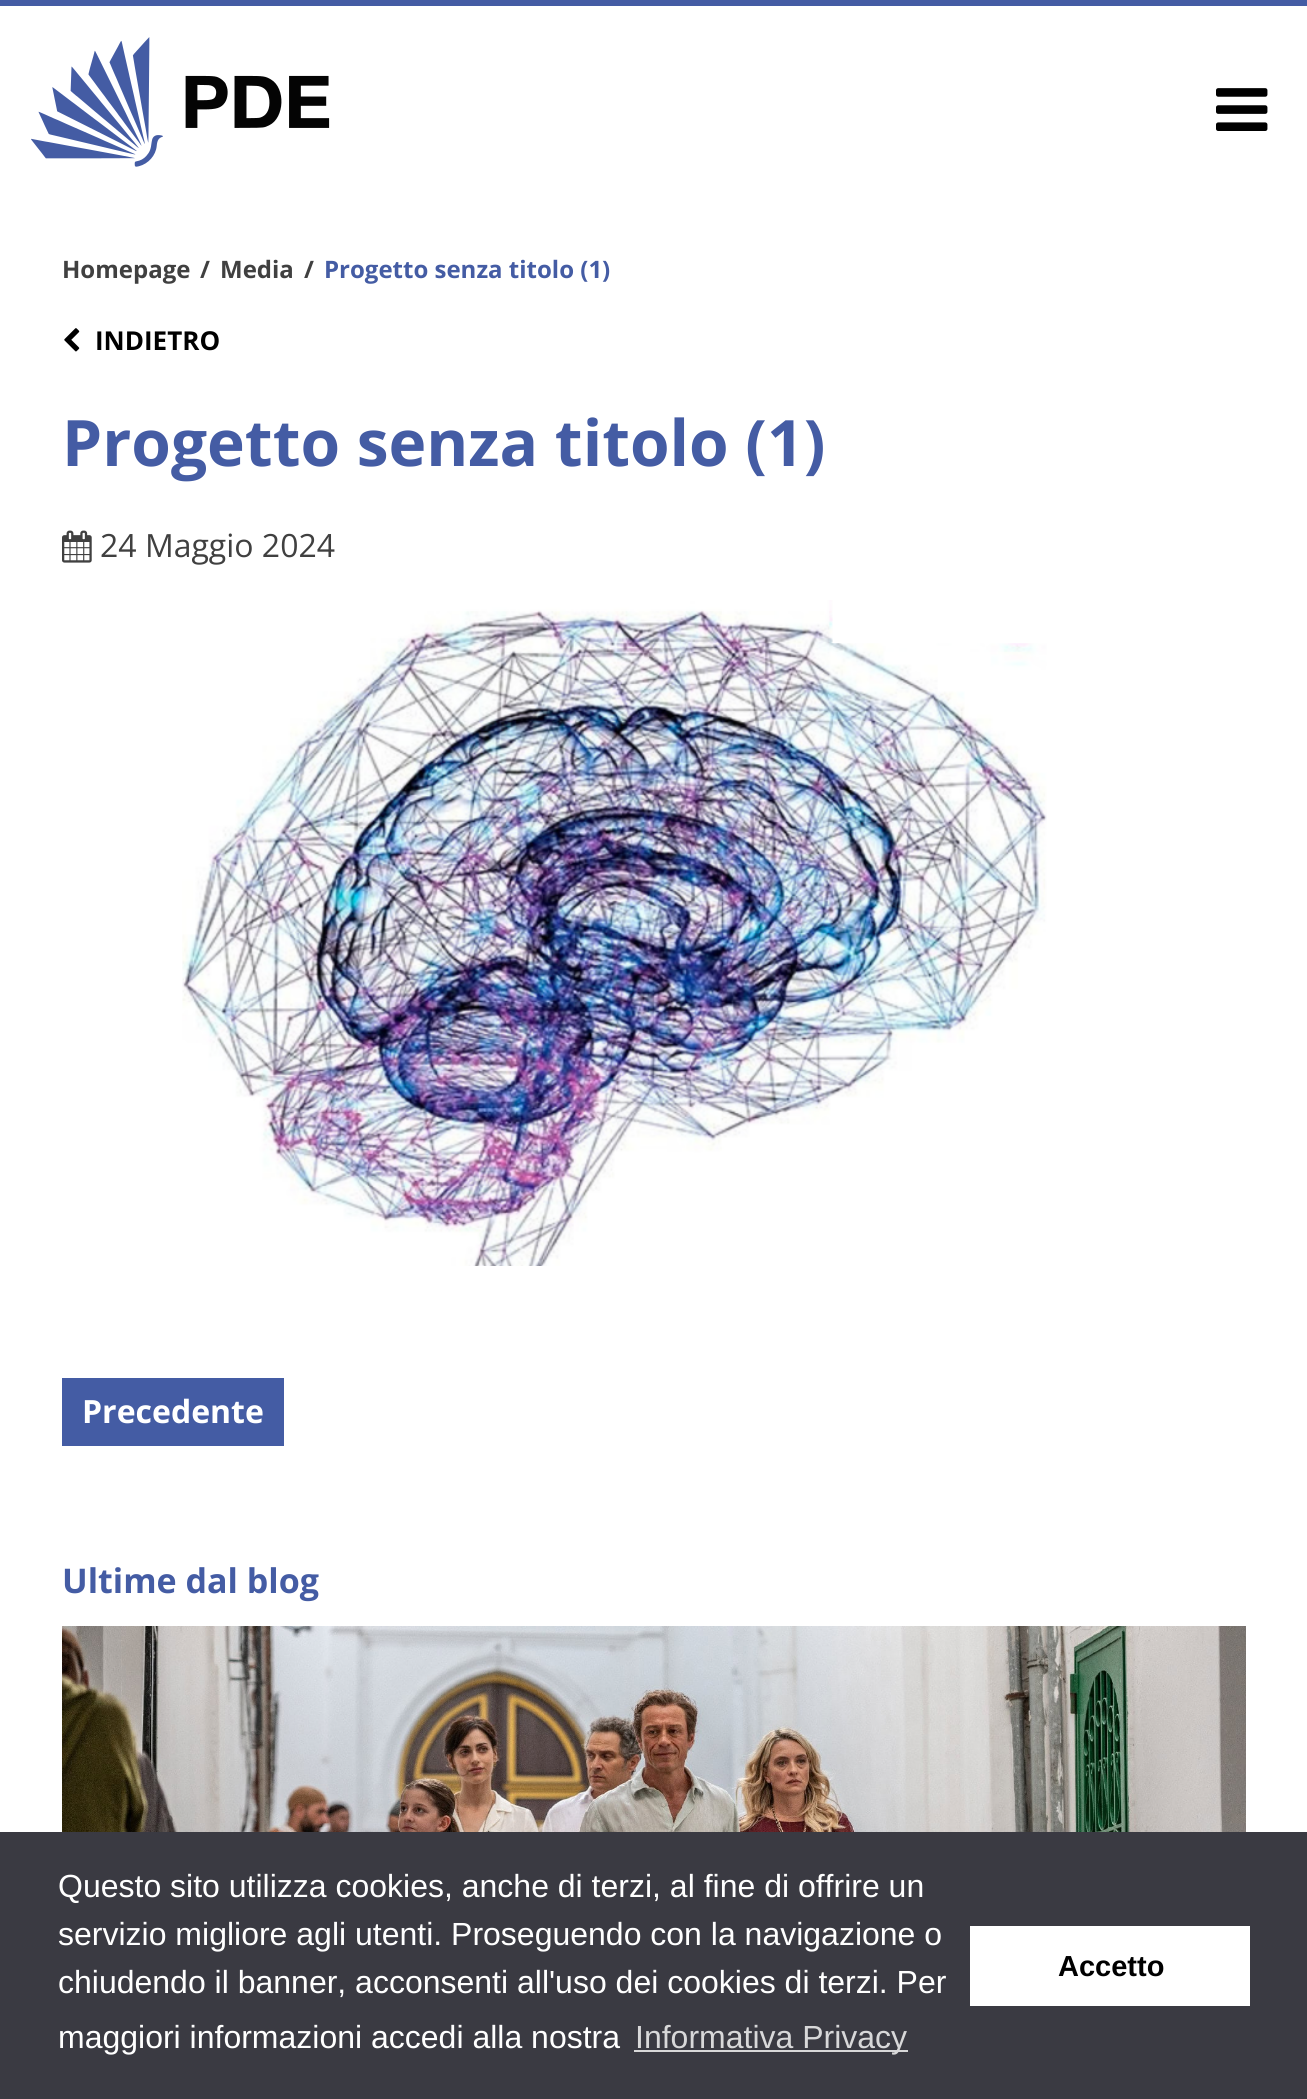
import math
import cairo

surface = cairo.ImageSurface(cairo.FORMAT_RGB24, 1307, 2099)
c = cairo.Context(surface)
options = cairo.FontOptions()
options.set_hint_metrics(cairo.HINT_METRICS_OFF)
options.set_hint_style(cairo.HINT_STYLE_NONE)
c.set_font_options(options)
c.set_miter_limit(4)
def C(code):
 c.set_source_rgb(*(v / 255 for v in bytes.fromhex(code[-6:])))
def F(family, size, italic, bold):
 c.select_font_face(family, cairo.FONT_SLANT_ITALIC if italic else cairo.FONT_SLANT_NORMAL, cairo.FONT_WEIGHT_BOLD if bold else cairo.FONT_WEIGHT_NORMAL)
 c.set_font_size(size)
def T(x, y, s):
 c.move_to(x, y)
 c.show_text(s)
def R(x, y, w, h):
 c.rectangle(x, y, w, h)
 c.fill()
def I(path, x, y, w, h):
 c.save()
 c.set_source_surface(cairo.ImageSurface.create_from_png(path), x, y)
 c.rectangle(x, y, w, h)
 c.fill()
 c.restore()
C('ffffff')
c.paint()
C('445ca4')
R(0,0,1307,6)
I('1.png',31,37,299,130)
I('2.png',1216,88,52,43)
F('Open Sans',24,0,1)
C('404040')
T(62,278,'Homepage')
T(200,278,'/')
T(220,278,'Media')
T(304,278,'/')
C('445ca4')
T(324,278,'Progetto senza titolo (1)')
I('3.png',64,328,16,24)
F('Open Sans',26,0,1)
C('000000')
T(95,350,'INDIETRO')
F('Open Sans',64,0,1)
C('445ca4')
T(62,466,'Progetto senza titolo (1)')
I('4.png',62,530,30,33)
F('Open Sans',32,0,0)
C('404040')
T(100,557,'24 Maggio 2024')
I('5.png',182,600,865,666)
C('445ca4')
R(62,1378,222,68)
F('Open Sans',32,0,1)
C('ffffff')
T(82,1423,'Precedente')
F('Open Sans',34,0,1)
C('445ca4')
T(62,1593,'Ultime dal blog')
I('6.png',62,1626,1184,206)
C('3a3a42')
R(0,1832,1307,267)
F('Liberation Sans',32,0,0)
C('ffffff')
T(58,1897,'Questo sito utilizza cookies, anche di terzi, al fine di offrire un')
T(58,1945,'servizio migliore agli utenti. Proseguendo con la navigazione o')
T(58,1993,'chiudendo il banner, acconsenti all\'uso dei cookies di terzi. Per')
T(58,2048,'maggiori informazioni accedi alla nostra')
C('d8d8d9')
R(634,2050,274,2)
T(635,2048,'Informativa Privacy')
C('ffffff')
R(970,1926,280,80)
F('Liberation Sans',29,0,1)
C('000000')
T(1058,1976,'Accetto')
surface.write_to_png('o.png')
